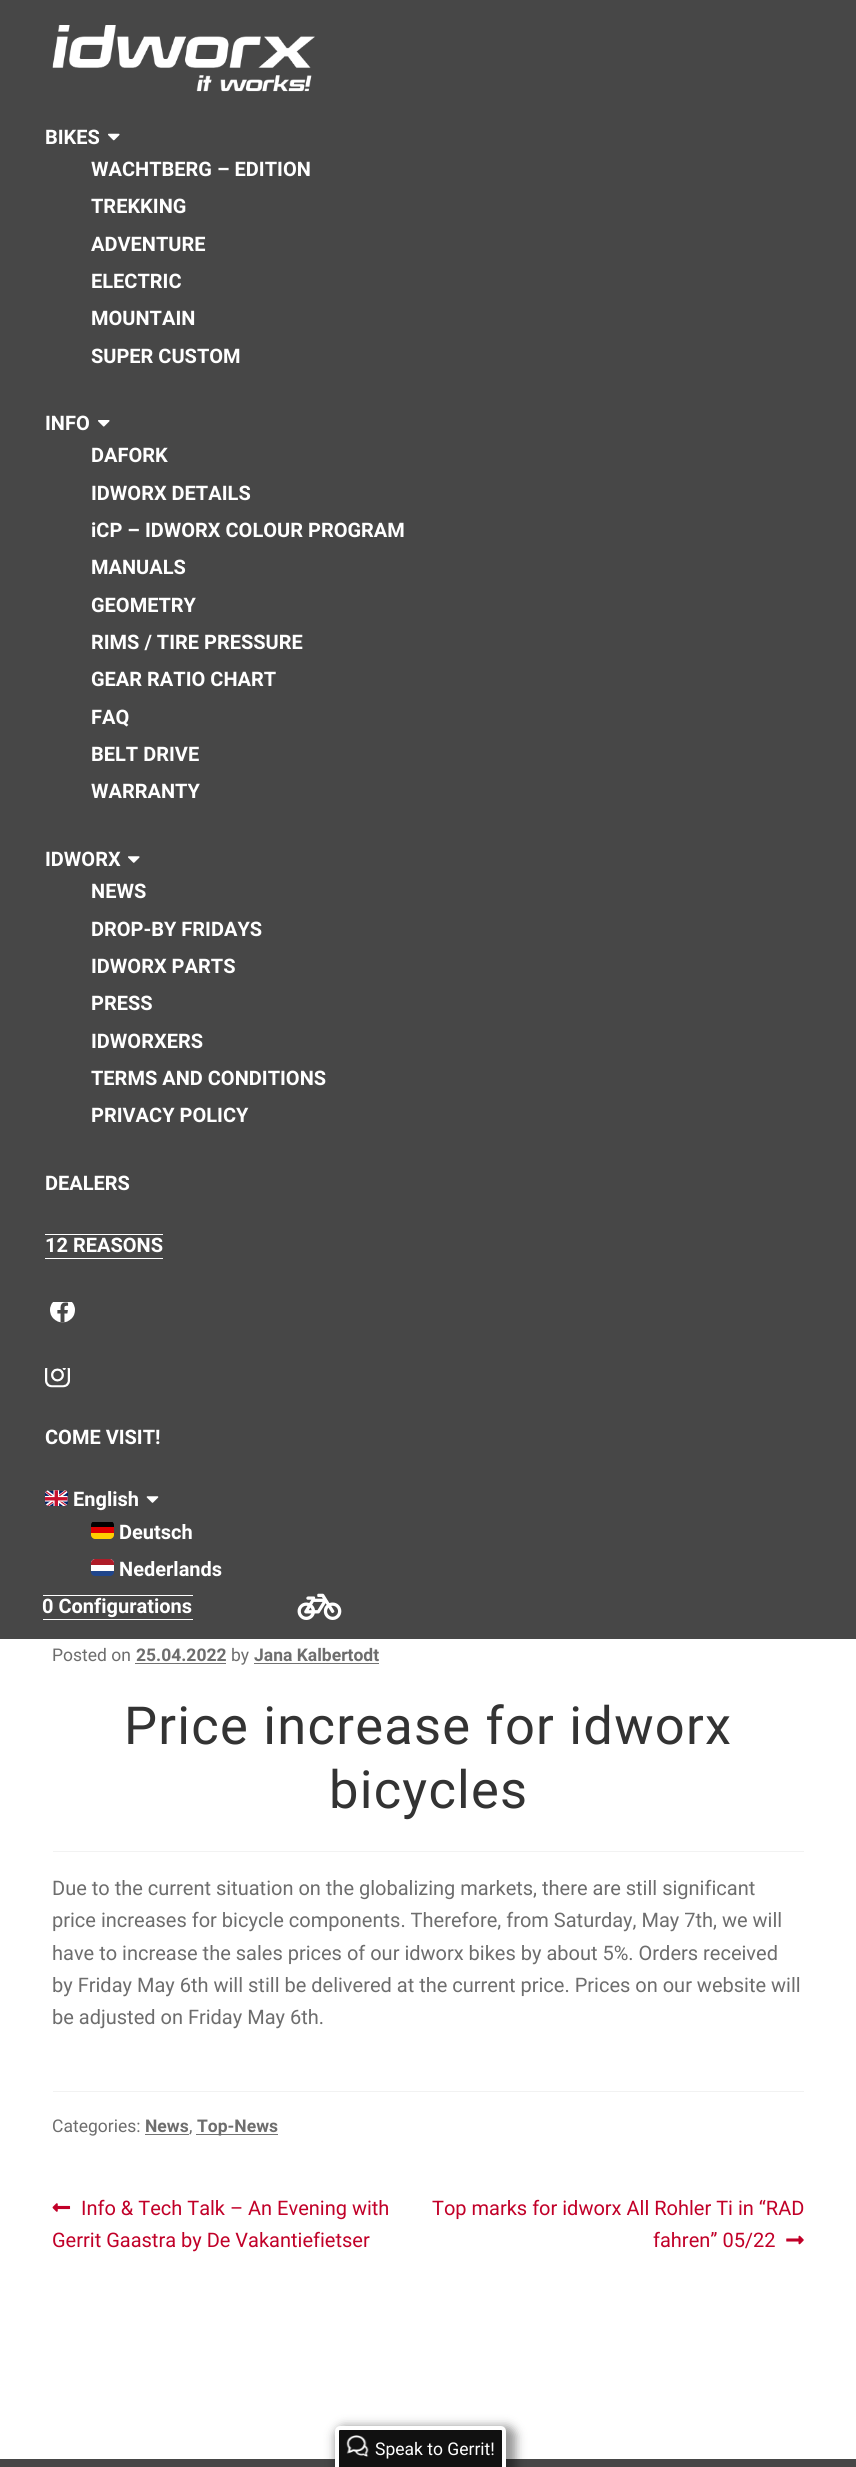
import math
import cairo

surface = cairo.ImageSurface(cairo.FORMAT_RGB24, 856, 2467)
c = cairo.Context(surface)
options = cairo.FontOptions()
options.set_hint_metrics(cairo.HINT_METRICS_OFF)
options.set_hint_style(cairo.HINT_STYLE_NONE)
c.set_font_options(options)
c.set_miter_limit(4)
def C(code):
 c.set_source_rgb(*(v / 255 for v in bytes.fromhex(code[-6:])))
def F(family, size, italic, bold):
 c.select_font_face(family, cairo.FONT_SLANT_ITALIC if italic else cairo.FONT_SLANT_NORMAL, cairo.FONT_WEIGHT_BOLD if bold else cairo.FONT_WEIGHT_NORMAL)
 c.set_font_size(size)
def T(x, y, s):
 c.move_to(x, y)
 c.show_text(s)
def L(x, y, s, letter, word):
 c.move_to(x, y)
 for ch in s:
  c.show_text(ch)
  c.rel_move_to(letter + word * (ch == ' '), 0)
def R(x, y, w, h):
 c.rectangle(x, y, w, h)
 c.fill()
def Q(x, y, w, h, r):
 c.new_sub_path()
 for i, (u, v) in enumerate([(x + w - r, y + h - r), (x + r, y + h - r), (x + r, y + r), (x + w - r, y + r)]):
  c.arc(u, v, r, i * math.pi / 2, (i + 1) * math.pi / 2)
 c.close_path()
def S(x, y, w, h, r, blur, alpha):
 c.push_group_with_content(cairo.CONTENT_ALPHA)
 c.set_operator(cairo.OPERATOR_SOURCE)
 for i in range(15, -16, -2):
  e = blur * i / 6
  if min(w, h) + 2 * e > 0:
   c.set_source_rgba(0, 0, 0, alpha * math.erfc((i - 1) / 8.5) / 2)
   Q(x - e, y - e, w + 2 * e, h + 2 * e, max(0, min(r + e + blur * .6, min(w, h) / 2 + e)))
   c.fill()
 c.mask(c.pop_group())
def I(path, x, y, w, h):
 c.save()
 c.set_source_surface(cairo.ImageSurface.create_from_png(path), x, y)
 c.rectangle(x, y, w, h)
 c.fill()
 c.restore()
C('ffffff')
c.paint()
C('474747')
R(0,0,856,1639)
I('1.png',52,25,263,67)
F('Roboto',20,0,1)
C('ffffff')
T(45,144,'BIKES')
I('2.png',108,133,12,8)
T(91,176,'WACHTBERG – EDITION')
T(91,213,'TREKKING')
T(91,251,'ADVENTURE')
T(91,288,'ELECTRIC')
T(91,325,'MOUNTAIN')
T(91,363,'SUPER CUSTOM')
T(45,430,'INFO')
I('3.png',98,420,12,7)
T(91,462,'DAFORK')
T(91,500,'IDWORX DETAILS')
T(91,537,'iCP – IDWORX COLOUR PROGRAM')
T(91,574,'MANUALS')
T(91,612,'GEOMETRY')
T(91,649,'RIMS / TIRE PRESSURE')
T(91,686,'GEAR RATIO CHART')
T(91,724,'FAQ')
T(91,761,'BELT DRIVE')
T(91,798,'WARRANTY')
T(45,866,'IDWORX')
I('4.png',128,856,12,7)
T(91,898,'NEWS')
T(91,936,'DROP-BY FRIDAYS')
T(91,973,'IDWORX PARTS')
T(91,1010,'PRESS')
T(91,1048,'IDWORXERS')
T(91,1085,'TERMS AND CONDITIONS')
T(91,1122,'PRIVACY POLICY')
T(45,1190,'DEALERS')
T(45,1252,'12 REASONS')
R(45,1258,118,1)
R(45,1234,118,1)
I('5.png',50,1302,25,21)
I('6.png',45,1368,25,20)
T(45,1444,'COME VISIT!')
I('7.png',45,1490,23,16)
T(73,1506,'English')
I('8.png',146,1496,13,7)
c.save()
Q(91,1521,23,18,4)
c.clip()
C('000000')
R(91,1522,23,5)
c.restore()
T(119,1539,'Deutsch')
C('dd0000')
R(91,1527,23,6)
C('ffce00')
c.new_path()
c.move_to(91,1533)
c.line_to(114,1533)
c.line_to(114,1535)
c.curve_to(114,1537,112,1539,110,1539)
c.line_to(95,1539)
c.curve_to(93,1539,91,1537,91,1535)
c.close_path()
c.fill()
C('21468b')
Q(91,1559,23,17,4)
c.fill()
C('ffffff')
c.new_path()
c.move_to(95,1559)
c.line_to(110,1559)
c.curve_to(112,1559,114,1561,114,1563)
c.line_to(114,1571)
c.line_to(91,1571)
c.line_to(91,1563)
c.curve_to(91,1561,93,1559,95,1559)
c.close_path()
c.fill()
C('ae1c28')
c.new_path()
c.move_to(95,1559)
c.line_to(110,1559)
c.curve_to(112,1559,114,1561,114,1563)
c.line_to(114,1565)
c.line_to(91,1565)
c.line_to(91,1563)
c.curve_to(91,1561,93,1559,95,1559)
c.close_path()
c.fill()
C('ffffff')
T(119,1576,'Nederlands')
T(42,1613,'0 Configurations')
R(43,1619,150,1)
R(43,1595,150,1)
I('9.png',297,1593,45,27)
C('f2f2f2')
R(53,1851,751,1)
F('Roboto',17.5,0,0)
C('6d6d6d')
T(52,1661,'Posted on')
F('Roboto',17.5,0,1)
T(136,1661,'25.04.2022')
C('727272')
R(135,1663,91,1)
F('Roboto',17.5,0,0)
C('6d6d6d')
T(231,1661,'by')
F('Roboto',17.5,0,1)
T(254,1661,'Jana Kalbertodt')
C('727272')
R(254,1663,125,1)
F('Roboto',52.4,0,0)
C('333333')
L(124,1744,'Price increase for idworx',1.25,0)
L(329,1808,'bicycles',1.25,0)
F('Roboto',20,0,0)
C('6d6d6d')
T(52,1895,'Due to the current situation on the globalizing markets, there are still significant')
T(52,1927,'price increases for bicycle components. Therefore, from Saturday, May 7th, we will')
T(52,1960,'have to increase the sales prices of our idworx bikes by about 5%. Orders received')
T(52,1992,'by Friday May 6th will still be delivered at the current price. Prices on our website will')
T(52,2024,'be adjusted on Friday May 6th.')
C('f2f2f2')
R(53,2091,751,1)
F('Roboto',17.5,0,0)
C('6d6d6d')
T(52,2132,'Categories:')
F('Roboto',17.5,0,1)
T(145,2132,'News')
C('727272')
R(145,2134,44,1)
F('Roboto',17.5,0,0)
C('6d6d6d')
T(189,2132,',')
C('727272')
R(196,2134,82,1)
F('Roboto',17.5,0,1)
C('6d6d6d')
T(197,2132,'Top-News')
I('10.png',52,2203,19,9)
F('Roboto',20,0,0)
C('c10028')
T(81,2215,'Info & Tech Talk – An Evening with')
T(52,2247,'Gerrit Gaastra by De Vakantiefietser')
T(432,2215,'Top marks for idworx All Rohler Ti in “RAD')
T(653,2247,'fahren” 05/22')
I('11.png',786,2235,18,10)
C('474747')
R(0,2459,856,8)
C('000000')
S(335,2426,181,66,10,5,.41)
C('111111')
Q(337,2428,167,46,3)
c.fill_preserve()
C('ffffff')
c.set_line_width(4)
c.stroke()
I('12.png',346,2435,23,22)
F('Roboto',17.5,0,0)
T(375,2455,'Speak to Gerrit!')
surface.write_to_png('o.png')
